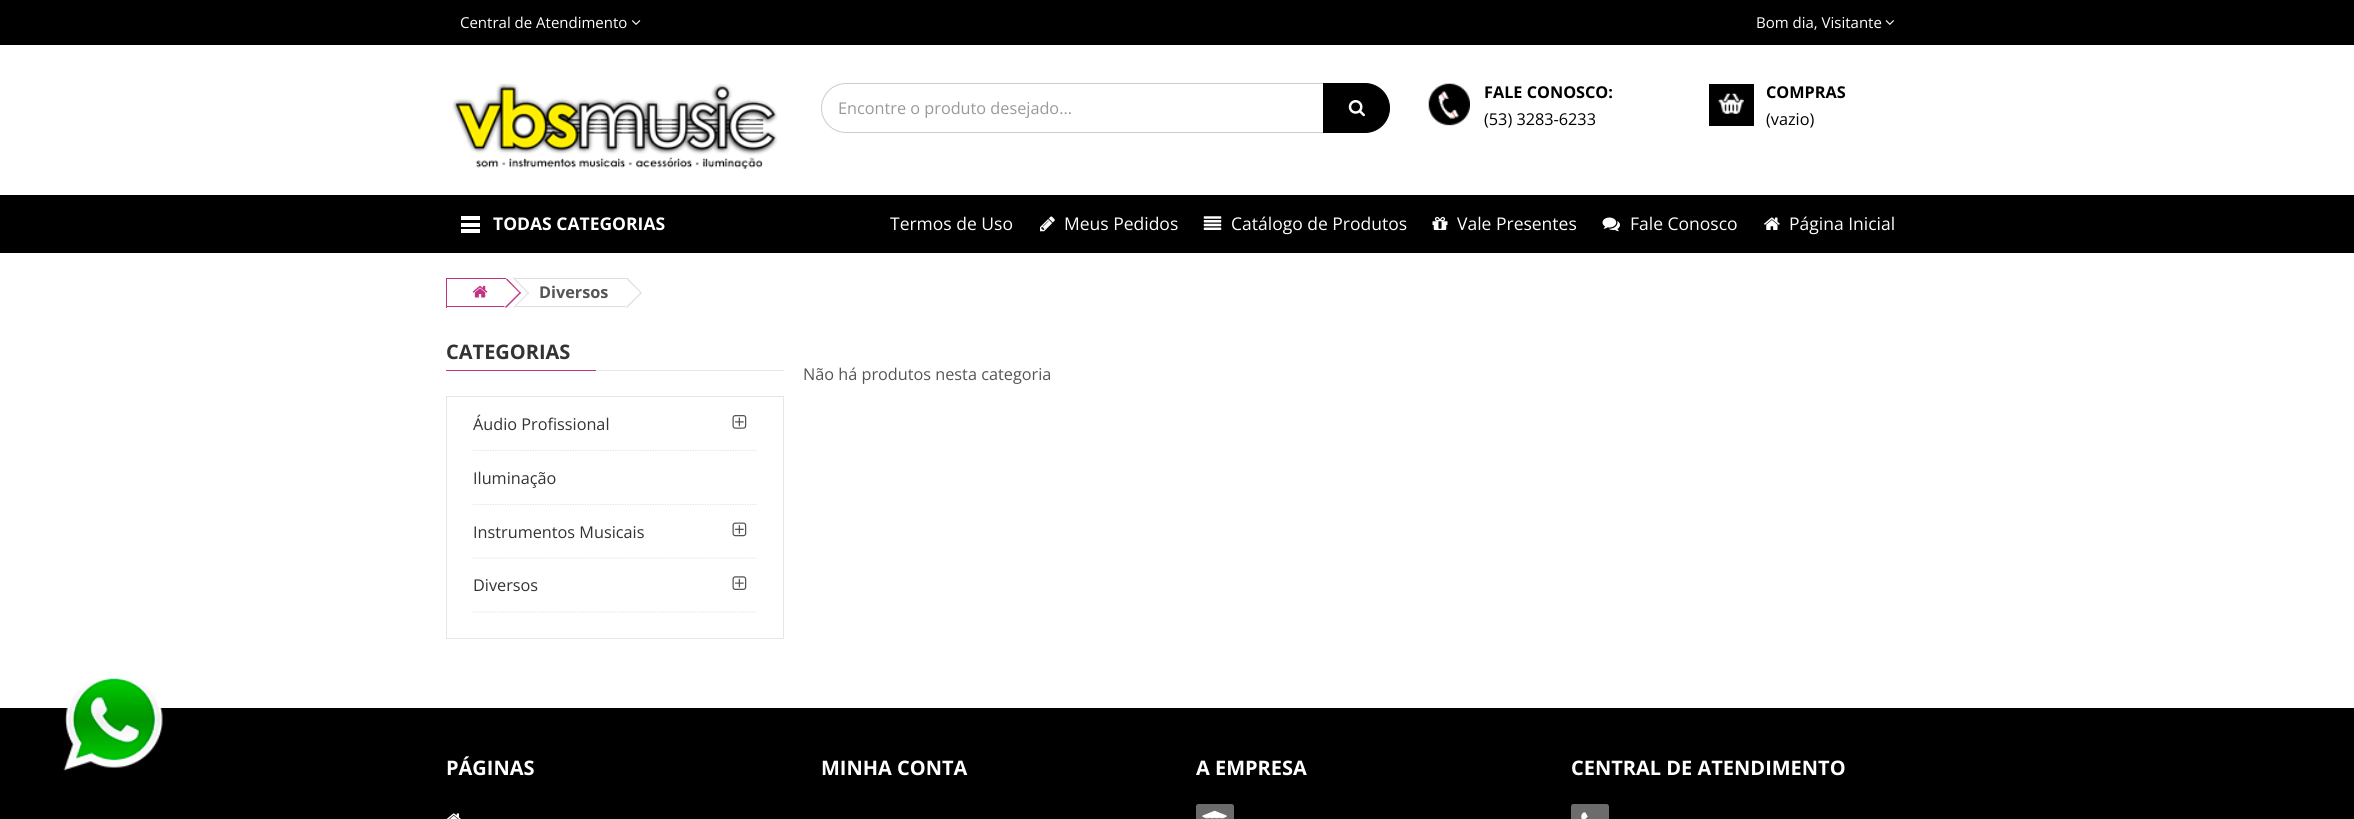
import math
import cairo

surface = cairo.ImageSurface(cairo.FORMAT_RGB24, 2354, 819)
c = cairo.Context(surface)
options = cairo.FontOptions()
options.set_hint_metrics(cairo.HINT_METRICS_OFF)
options.set_hint_style(cairo.HINT_STYLE_NONE)
c.set_font_options(options)
c.set_miter_limit(4)
def C(code):
 c.set_source_rgb(*(v / 255 for v in bytes.fromhex(code[-6:])))
def F(family, size, italic, bold):
 c.select_font_face(family, cairo.FONT_SLANT_ITALIC if italic else cairo.FONT_SLANT_NORMAL, cairo.FONT_WEIGHT_BOLD if bold else cairo.FONT_WEIGHT_NORMAL)
 c.set_font_size(size)
def T(x, y, s):
 c.move_to(x, y)
 c.show_text(s)
def R(x, y, w, h):
 c.rectangle(x, y, w, h)
 c.fill()
def Q(x, y, w, h, r):
 c.new_sub_path()
 for i, (u, v) in enumerate([(x + w - r, y + h - r), (x + r, y + h - r), (x + r, y + r), (x + w - r, y + r)]):
  c.arc(u, v, r, i * math.pi / 2, (i + 1) * math.pi / 2)
 c.close_path()
def I(path, x, y, w, h):
 c.save()
 c.set_source_surface(cairo.ImageSurface.create_from_png(path), x, y)
 c.rectangle(x, y, w, h)
 c.fill()
 c.restore()
C('ffffff')
c.paint()
C('000000')
R(0,0,2354,45)
F('Open Sans',15,0,0)
C('ffffff')
T(460,28,'Central de Atendimento')
I('1.png',631,20,10,5)
T(1756,28,'Bom dia, Visitante')
I('2.png',1885,20,9,5)
I('3.png',452,83,326,86)
c.new_path()
c.move_to(846,83.5)
c.line_to(1323.5,83.5)
c.line_to(1323.5,132.5)
c.line_to(846,132.5)
c.curve_to(832.5,132.5,821.5,121.5,821.5,108)
c.curve_to(821.5,94.5,832.5,83.5,846,83.5)
c.close_path()
C('cccccc')
c.set_line_width(1)
c.stroke()
F('Open Sans',16.25,0,0)
C('999999')
T(838,114,'Encontre o produto desejado...')
C('000000')
c.new_path()
c.move_to(1323.5,83.5)
c.line_to(1365,83.5)
c.curve_to(1378.5,83.5,1389.5,94.5,1389.5,108)
c.curve_to(1389.5,121.5,1378.5,132.5,1365,132.5)
c.line_to(1323.5,132.5)
c.close_path()
c.fill_preserve()
c.stroke()
I('4.png',1348,100,17,17)
I('5.png',1428,83,42,43)
F('Open Sans',16.25,0,1)
T(1484,98,'FALE CONOSCO:')
F('Open Sans',16.25,0,0)
T(1484,125,'(53) 3283-6233')
R(1709,84,45,42)
I('6.png',1718,93,26,21)
F('Open Sans',16.25,0,1)
T(1766,98,'COMPRAS')
F('Open Sans',16.25,0,0)
T(1766,125,'(vazio)')
R(0,195,2354,58)
C('ffffff')
R(461,216,19,4)
R(461,223,19,4)
R(461,229,19,4)
F('Open Sans',17.5,0,1)
T(493,230,'TODAS CATEGORIAS')
F('Open Sans',17.5,0,0)
T(890,230,'Termos de Uso')
I('7.png',1040,216,15,16)
T(1064,230,'Meus Pedidos')
I('8.png',1203,216,19,14)
T(1231,230,'Catálogo de Produtos')
I('9.png',1432,216,16,14)
T(1457,230,'Vale Presentes')
I('10.png',1602,217,18,15)
T(1630,230,'Fale Conosco')
I('11.png',1764,217,16,13)
T(1789,230,'Página Inicial')
C('c23382')
R(446,278,60,1)
R(446,306,60,1)
R(446,278,1,30)
I('12.png',472,285,16,13)
C('dddddd')
R(514,278,114,1)
R(514,306,114,1)
C('ffffff')
c.new_path()
c.move_to(529,293)
c.line_to(514,308)
c.line_to(498,292)
c.line_to(513.5,277)
c.close_path()
c.fill()
C('e1e1e1')
c.new_path()
c.move_to(529,293)
c.line_to(514,308)
c.line_to(513.5,307)
c.line_to(528.5,292)
c.close_path()
c.fill()
c.new_path()
c.move_to(529,293)
c.line_to(528.5,294)
c.line_to(512.5,278)
c.line_to(513.5,277)
c.close_path()
c.fill()
C('ffffff')
c.new_path()
c.move_to(507,278.5)
c.line_to(521,293)
c.line_to(506,308)
c.line_to(492,293.5)
c.close_path()
c.fill()
C('c23382')
c.new_path()
c.move_to(507,278.5)
c.line_to(521,293)
c.line_to(520,293.5)
c.line_to(506,279.5)
c.close_path()
c.fill()
c.new_path()
c.move_to(520,292)
c.line_to(521,293)
c.line_to(506,308)
c.line_to(505,307)
c.close_path()
c.fill()
F('Open Sans',16.25,0,1)
C('555555')
T(539,298,'Diversos')
C('ffffff')
c.new_path()
c.move_to(628,278.5)
c.line_to(642,293)
c.line_to(627,308)
c.line_to(613,293.5)
c.close_path()
c.fill()
C('e1e1e1')
c.new_path()
c.move_to(628,278.5)
c.line_to(642,293)
c.line_to(641,293.5)
c.line_to(627,279.5)
c.close_path()
c.fill()
c.new_path()
c.move_to(641,292)
c.line_to(642,293)
c.line_to(627,308)
c.line_to(626,307)
c.close_path()
c.fill()
C('e6e6e6')
R(596,370,188,1)
F('Open Sans',20,0,1)
C('333333')
T(446,359,'CATEGORIAS')
C('c23382')
R(446,370,150,1)
c.rectangle(446.5,396.5,337,242)
C('e6e6e6')
c.stroke()
c.new_path()
c.move_to(472.5,450.5)
c.line_to(757.5,450.5)
C('e4e4e4')
c.set_line_width(1.2)
c.set_dash([1.25,1.25])
c.stroke()
F('Open Sans',16.25,0,0)
C('333333')
T(473,430,'Áudio Profissional')
I('13.png',732,415,15,14)
c.new_path()
c.move_to(472.5,504.5)
c.line_to(757.5,504.5)
C('e4e4e4')
c.stroke()
C('333333')
T(473,484,'Iluminação')
c.new_path()
c.move_to(472.5,558)
c.line_to(757.5,558)
C('e4e4e4')
c.stroke()
C('333333')
T(473,538,'Instrumentos Musicais')
I('14.png',732,522,15,15)
c.new_path()
c.move_to(472.5,612)
c.line_to(757.5,612)
C('e4e4e4')
c.stroke()
C('333333')
T(473,591,'Diversos')
I('15.png',732,576,15,14)
C('555555')
T(803,380,'Não há produtos nesta categoria')
C('000000')
R(0,708,2354,111)
I('16.png',63,678,100,93)
F('Open Sans',20,0,1)
C('ffffff')
T(446,775,'PÁGINAS')
I('17.png',446,813,15,6)
T(821,775,'MINHA CONTA')
T(1196,775,'A EMPRESA')
C('6c6c6c')
Q(1196,804,38,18,2.5)
c.fill()
I('18.png',1202,810,25,9)
C('ffffff')
T(1571,775,'CENTRAL DE ATENDIMENTO')
C('6c6c6c')
Q(1571,804,38,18,2.5)
c.fill()
I('19.png',1581,812,7,7)
surface.write_to_png('o.png')
